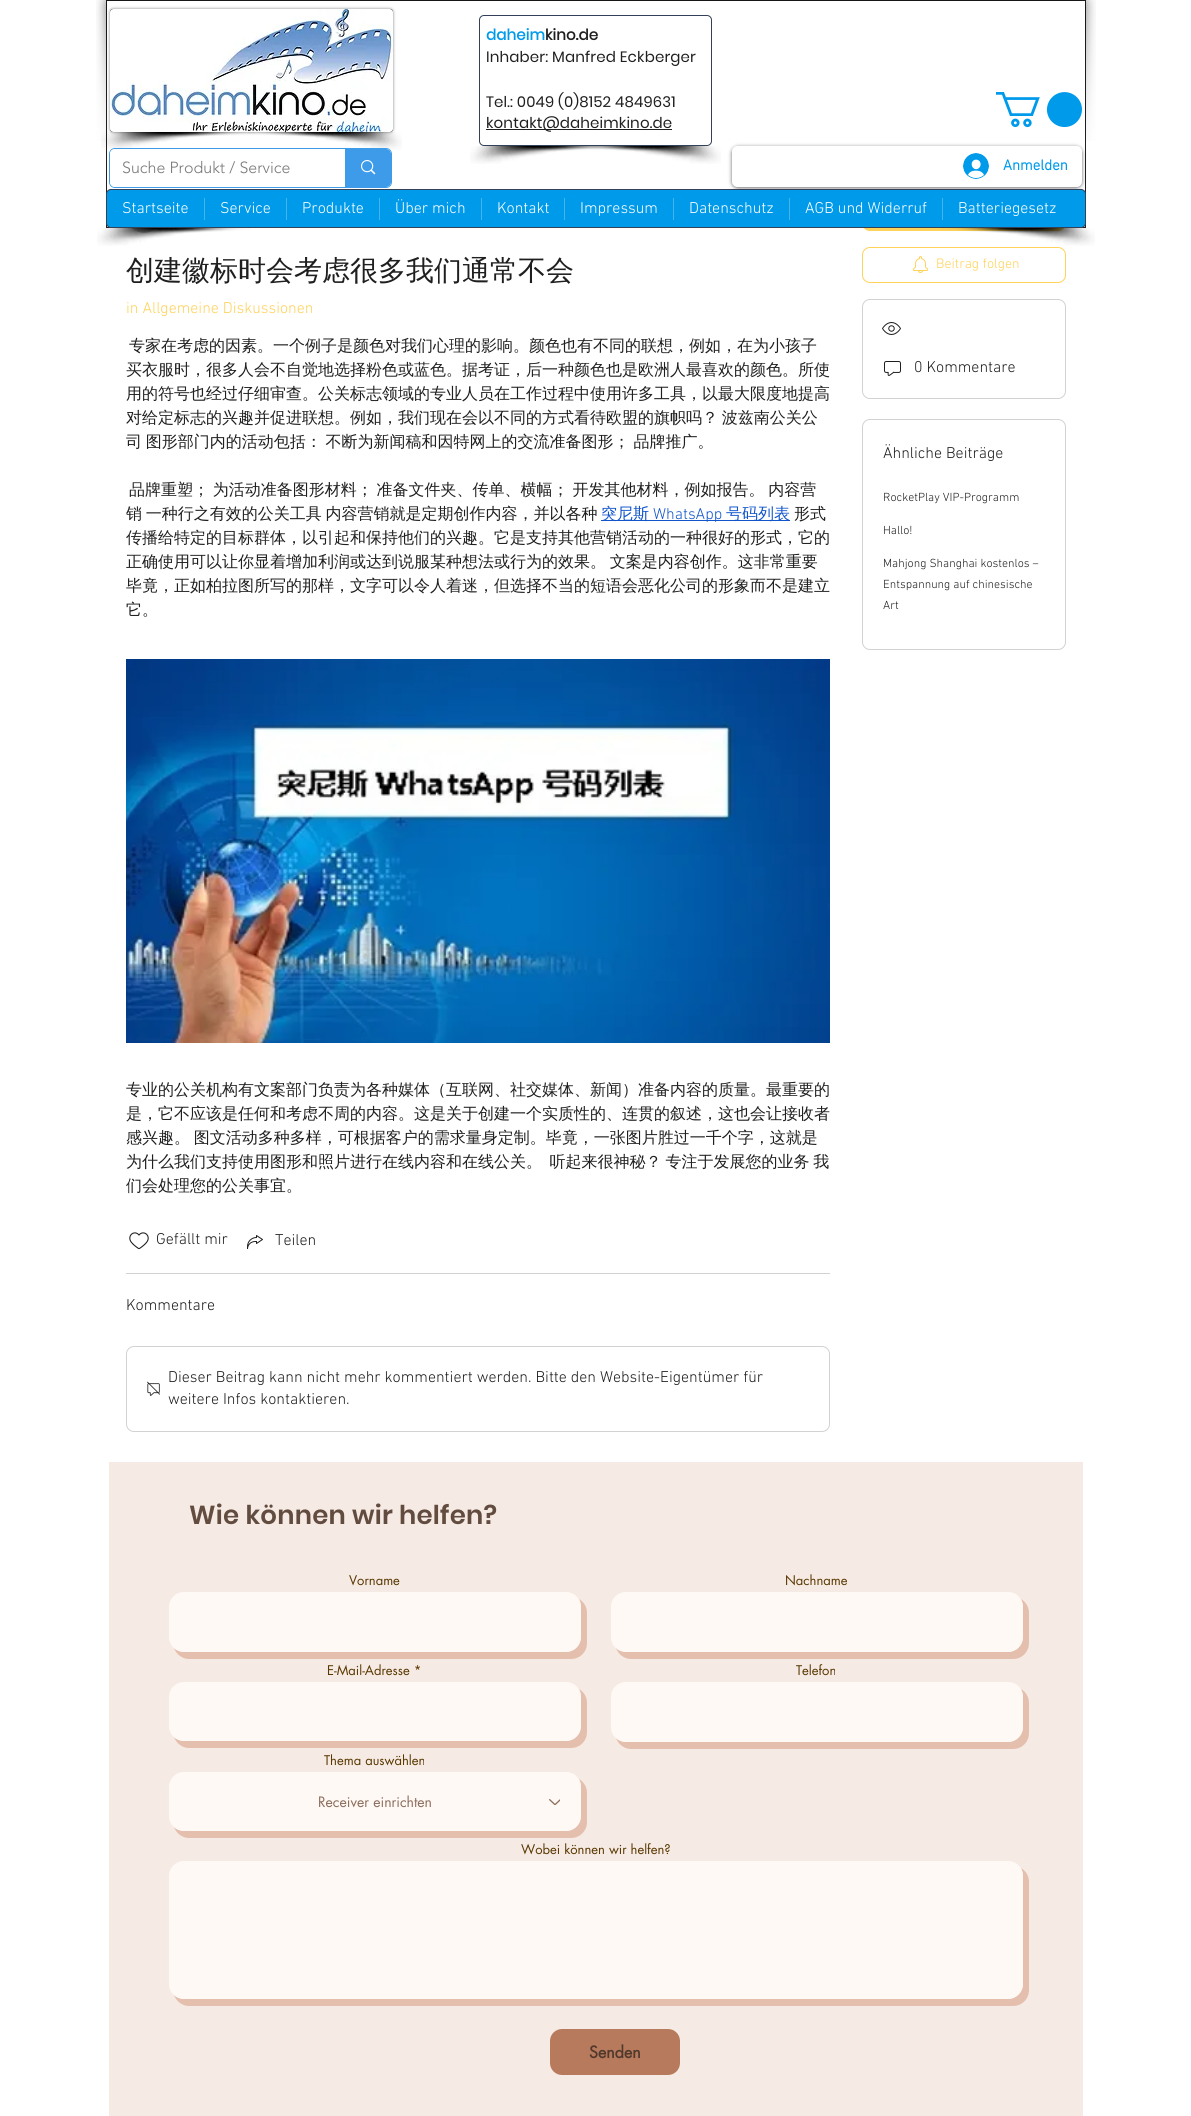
import math
import cairo

surface = cairo.ImageSurface(cairo.FORMAT_RGB24, 1191, 2116)
c = cairo.Context(surface)
options = cairo.FontOptions()
options.set_hint_metrics(cairo.HINT_METRICS_OFF)
options.set_hint_style(cairo.HINT_STYLE_NONE)
c.set_font_options(options)
c.set_miter_limit(4)
def C(code):
 c.set_source_rgb(*(v / 255 for v in bytes.fromhex(code[-6:])))
def F(family, size, italic, bold):
 c.select_font_face(family, cairo.FONT_SLANT_ITALIC if italic else cairo.FONT_SLANT_NORMAL, cairo.FONT_WEIGHT_BOLD if bold else cairo.FONT_WEIGHT_NORMAL)
 c.set_font_size(size)
def T(x, y, s):
 c.move_to(x, y)
 c.show_text(s)
def L(x, y, s, letter, word):
 c.move_to(x, y)
 for ch in s:
  c.show_text(ch)
  c.rel_move_to(letter + word * (ch == ' '), 0)
def R(x, y, w, h):
 c.rectangle(x, y, w, h)
 c.fill()
def Q(x, y, w, h, r):
 c.new_sub_path()
 for i, (u, v) in enumerate([(x + w - r, y + h - r), (x + r, y + h - r), (x + r, y + r), (x + w - r, y + r)]):
  c.arc(u, v, r, i * math.pi / 2, (i + 1) * math.pi / 2)
 c.close_path()
def S(x, y, w, h, r, blur, alpha):
 c.push_group_with_content(cairo.CONTENT_ALPHA)
 c.set_operator(cairo.OPERATOR_SOURCE)
 for i in range(15, -16, -2):
  e = blur * i / 6
  if min(w, h) + 2 * e > 0:
   c.set_source_rgba(0, 0, 0, alpha * math.erfc((i - 1) / 8.5) / 2)
   Q(x - e, y - e, w + 2 * e, h + 2 * e, max(0, min(r + e + blur * .6, min(w, h) / 2 + e)))
   c.fill()
 c.mask(c.pop_group())
def I(path, x, y, w, h):
 c.save()
 c.set_source_surface(cairo.ImageSurface.create_from_png(path), x, y)
 c.rectangle(x, y, w, h)
 c.fill()
 c.restore()
C('ffffff')
c.paint()
C('ffd25a')
Q(862,195,204,36,8)
c.fill()
C('1f1f1f')
R(106,0,980,228)
I('1.png',96,0,45,141)
I('2.png',141,0,910,1)
I('3.png',1051,0,45,141)
C('ffffff')
R(107,1,978,226)
C('000000')
S(110,9,283,123,3,1.5,.5)
C('000000')
Q(110,9,283,123,3)
c.fill()
I('4.png',110,9,283,123)
I('5.png',101,132,154,18)
I('6.png',248,132,154,18)
Q(479.5,15.5,232,130,4.5)
C('324158')
c.set_line_width(1)
c.stroke()
F('Poppins',15,0,1)
C('009aeb')
L(486,40,'daheim',.15,0)
C('1f1f1f')
L(545,40,'kino.de',.15,0)
F('Poppins',15,0,0)
L(486,62,'Inhaber: Manfred Eckberger',.15,0)
L(486,107,'Tel.: 0049 (0)8152 4849631',.15,0)
R(486,129,186,1)
L(486,128,'kontakt@daheimkino.de',.15,0)
I('7.png',470,146,154,18)
I('8.png',577,146,144,18)
I('9.png',996,92,86,36)
Q(109.5,148.5,282,39,5.5)
C('3d9be9')
c.stroke()
C('ffffff')
Q(110,149,281,38,5)
c.fill()
F('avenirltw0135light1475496 Light',16,0,0)
C('787878')
T(122,173,'Suche Produkt / Service')
C('3d9be9')
c.new_path()
c.move_to(345,149)
c.line_to(386,149)
c.curve_to(389,149,391,151,391,154)
c.line_to(391,182)
c.curve_to(391,185,389,187,386,187)
c.line_to(345,187)
c.close_path()
c.fill()
I('10.png',361,160,15,15)
c.save()
c.set_fill_rule(cairo.FILL_RULE_EVEN_ODD)
c.new_path()
c.move_to(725,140)
c.line_to(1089,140)
c.line_to(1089,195)
c.line_to(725,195)
c.close_path()
c.move_to(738,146)
c.line_to(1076,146)
c.curve_to(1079.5,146,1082,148.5,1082,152)
c.line_to(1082,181)
c.curve_to(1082,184.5,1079.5,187,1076,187)
c.line_to(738,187)
c.curve_to(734.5,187,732,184.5,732,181)
c.line_to(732,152)
c.curve_to(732,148.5,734.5,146,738,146)
c.close_path()
c.clip()
C('000000')
S(732,147,350,41,6,2,.6)
c.restore()
I('11.png',963,153,26,26)
F('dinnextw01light',15,0,1)
C('009aeb')
T(1003,170,'Anmelden')
Q(106.5,189.5,979,38,4.5)
c.fill_preserve()
C('324158')
c.stroke()
F('dinnextw01light Light',16,0,0)
C('ffffff')
T(122,213,'Startseite')
C('42b4f0')
R(204,198,1,22)
C('ffffff')
T(220,213,'Service')
C('42b4f0')
R(286,198,1,22)
C('ffffff')
T(302,213,'Produkte')
C('42b4f0')
R(379,198,1,22)
C('ffffff')
T(395,213,'Über mich')
C('42b4f0')
R(481,198,1,22)
C('ffffff')
T(497,213,'Kontakt')
C('42b4f0')
R(564,198,1,22)
C('ffffff')
T(580,213,'Impressum')
C('42b4f0')
R(673,198,1,22)
C('ffffff')
T(689,213,'Datenschutz')
C('42b4f0')
R(789,198,1,22)
C('ffffff')
T(805,213,'AGB und Widerruf')
C('42b4f0')
R(942,198,1,22)
C('ffffff')
T(958,213,'Batteriegesetz')
I('14.png',132,228,23,5)
I('12.png',97,228,154,18)
I('13.png',941,228,154,18)
F('WenQuanYi Zen Hei Medium',28,0,0)
C('1f1f1f')
T(126,280,'创建徽标时会考虑很多我们通常不会')
F('dinnextw01light Light',16,0,0)
C('ffd25a')
T(126,313,'in Allgemeine Diskussionen')
F('WenQuanYi Zen Hei Medium',16,0,0)
C('1f1f1f')
T(129,351,'专家在考虑的因素。一个例子是颜色对我们心理的影响。颜色也有不同的联想，例如，在为小孩子')
T(126,375,'买衣服时，很多人会不自觉地选择粉色或蓝色。据考证，后一种颜色也是欧洲人最喜欢的颜色。所使')
T(126,399,'用的符号也经过仔细审查。公关标志领域的专业人员在工作过程中使用许多工具，以最大限度地提高')
L(126,423,'对给定标志的兴趣并促进联想。例如，我们现在会以不同的方式看待欧盟的旗帜吗？ 波兹南公关公',0,-1)
L(126,447,'司 图形部门内的活动包括： 不断为新闻稿和因特网上的交流准备图形； 品牌推广。',0,-1)
L(129,495,'品牌重塑； 为活动准备图形材料； 准备文件夹、传单、横幅； 开发其他材料，例如报告。 内容营',0,-1)
L(126,519,'销 一种行之有效的公关工具 内容营销就是定期创作内容，并以各种',0,-1)
C('1155cc')
R(601,520,189,1)
T(601,519,'突尼斯')
F('dinnextw01light Light',16,0,0)
T(653,519,'WhatsApp')
F('WenQuanYi Zen Hei Medium',16,0,0)
T(726,519,'号码列表')
C('1f1f1f')
T(794,519,'形式')
T(126,543,'传播给特定的目标群体，以引起和保持他们的兴趣。它是支持其他营销活动的一种很好的形式，它的')
L(126,567,'正确使用可以让你显着增加利润或达到说服某种想法或行为的效果。 文案是内容创作。这非常重要',0,-1)
T(126,591,'毕竟，正如柏拉图所写的那样，文字可以令人着迷，但选择不当的短语会恶化公司的形象而不是建立')
T(126,615,'它。')
I('15.png',126,659,704,384)
T(126,1095,'专业的公关机构有文案部门负责为各种媒体（互联网、社交媒体、新闻）准备内容的质量。最重要的')
T(126,1119,'是，它不应该是任何和考虑不周的内容。这是关于创建一个实质性的、连贯的叙述，这也会让接收者')
L(126,1143,'感兴趣。 图文活动多种多样，可根据客户的需求量身定制。毕竟，一张图片胜过一千个字，这就是',0,-1)
L(126,1167,'为什么我们支持使用图形和照片进行在线内容和在线公关。  听起来很神秘？ 专注于发展您的业务 我',0,-1)
T(126,1191,'们会处理您的公关事宜。')
I('16.png',129,1232,20,18)
F('dinnextw01light Light',16,0,0)
T(156,1244,'Gefällt mir')
I('17.png',247,1235,16,14)
T(275,1245,'Teilen')
C('d2d2d2')
R(126,1273,704,1)
C('1f1f1f')
T(126,1310,'Kommentare')
Q(126.5,1346.5,703,85,7.5)
C('d2d2d2')
c.stroke()
I('18.png',147,1381,13,15)
C('1f1f1f')
T(168,1382,'Dieser Beitrag kann nicht mehr kommentiert werden. Bitte den Website-Eigentümer für')
T(168,1404,'weitere Infos kontaktieren.')
Q(862.5,247.5,203,35,7.5)
C('ffd25a')
c.stroke()
I('19.png',913,256,15,17)
F('dinnextw01light Light',14,0,0)
T(936,268,'Beitrag folgen')
Q(862.5,299.5,203,99,7.5)
C('d2d2d2')
c.stroke()
I('20.png',882,322,19,13)
I('21.png',884,361,17,15)
F('dinnextw01light Light',16,0,0)
C('1f1f1f')
T(914,372,'0 Kommentare')
Q(862.5,419.5,203,230,7.5)
C('d2d2d2')
c.stroke()
C('1f1f1f')
T(883,458,'Ähnliche Beiträge')
F('dinnextw01light Light',12,0,0)
T(883,501,'RocketPlay VIP-Programm')
T(883,534,'Hallo!')
T(883,567,'Mahjong Shanghai kostenlos –')
T(883,588,'Entspannung auf chinesische')
T(883,609,'Art')
C('f6ebe4')
R(109,1462,974,654)
F('Poppins SemiBold',26,0,0)
C('624c40')
L(189,1524,'Wie können wir helfen?',.25,0)
F('futura',13,0,0)
C('583700')
T(349,1585,'Vorname')
C('e4bfad')
c.new_path()
c.move_to(174,1648)
c.curve_to(176,1654,182,1659,189,1659)
c.line_to(571,1659)
c.curve_to(580,1659,587,1652,587,1643)
c.line_to(587,1613)
c.curve_to(587,1607,584,1602,579,1599)
c.curve_to(580,1601,581,1604,581,1607)
c.line_to(581,1637)
c.curve_to(581,1645,574,1652,566,1652)
c.line_to(184,1652)
c.curve_to(180,1652,176,1650,174,1648)
c.close_path()
c.fill()
C('fff9f5')
Q(170,1593,410,58,14)
c.fill_preserve()
c.set_line_width(2)
c.stroke()
C('583700')
T(785,1585,'Nachname')
C('e4bfad')
c.new_path()
c.move_to(616,1648)
c.curve_to(618,1654,624,1659,631,1659)
c.line_to(1013,1659)
c.curve_to(1022,1659,1029,1652,1029,1643)
c.line_to(1029,1613)
c.curve_to(1029,1607,1026,1602,1021,1599)
c.curve_to(1022,1601,1023,1604,1023,1607)
c.line_to(1023,1637)
c.curve_to(1023,1645,1016,1652,1008,1652)
c.line_to(626,1652)
c.curve_to(622,1652,618,1650,616,1648)
c.close_path()
c.fill()
C('fff9f5')
Q(612,1593,410,58,14)
c.fill_preserve()
c.stroke()
C('583700')
T(327,1675,'E-Mail-Adresse *')
C('e4bfad')
c.new_path()
c.move_to(174,1737)
c.curve_to(176,1743,182,1748,189,1748)
c.line_to(571,1748)
c.curve_to(580,1748,587,1741,587,1732)
c.line_to(587,1703)
c.curve_to(587,1697,584,1692,579,1689)
c.curve_to(580,1691,581,1694,581,1697)
c.line_to(581,1726)
c.curve_to(581,1734,574,1741,566,1741)
c.line_to(184,1741)
c.curve_to(180,1741,176,1739,174,1737)
c.close_path()
c.fill()
C('fff9f5')
Q(170,1683,410,57,14)
c.fill_preserve()
c.stroke()
C('583700')
T(796,1675,'Telefon')
C('e4bfad')
c.new_path()
c.move_to(616,1738)
c.curve_to(618,1744,624,1749,631,1749)
c.line_to(1013,1749)
c.curve_to(1022,1749,1029,1742,1029,1733)
c.line_to(1029,1703)
c.curve_to(1029,1697,1026,1692,1021,1689)
c.curve_to(1022,1691,1023,1694,1023,1697)
c.line_to(1023,1727)
c.curve_to(1023,1735,1016,1742,1008,1742)
c.line_to(626,1742)
c.curve_to(622,1742,618,1740,616,1738)
c.close_path()
c.fill()
C('fff9f5')
Q(612,1683,410,58,14)
c.fill_preserve()
c.stroke()
C('583700')
T(324,1765,'Thema auswählen')
C('e4bfad')
c.new_path()
c.move_to(174,1827)
c.curve_to(176,1833,182,1838,189,1838)
c.line_to(571,1838)
c.curve_to(580,1838,587,1831,587,1822)
c.line_to(587,1793)
c.curve_to(587,1787,584,1782,579,1779)
c.curve_to(580,1781,581,1784,581,1787)
c.line_to(581,1816)
c.curve_to(581,1824,574,1831,566,1831)
c.line_to(184,1831)
c.curve_to(180,1831,176,1829,174,1827)
c.close_path()
c.fill()
C('fff9f5')
Q(170,1773,410,57,14)
c.fill_preserve()
c.stroke()
F('futura',14,0,0)
C('8c6d5c')
T(318,1807,'Receiver einrichten')
I('22.png',549,1799,11,6)
F('futura',13,0,0)
C('583700')
T(521,1854,'Wobei können wir helfen?')
C('e4bfad')
c.new_path()
c.move_to(174,1995)
c.curve_to(176,2001,182,2006,189,2006)
c.line_to(1013,2006)
c.curve_to(1022,2006,1029,1999,1029,1990)
c.line_to(1029,1882)
c.curve_to(1029,1876,1026,1871,1021,1868)
c.curve_to(1022,1870,1023,1873,1023,1876)
c.line_to(1023,1984)
c.curve_to(1023,1992,1016,1999,1008,1999)
c.line_to(184,1999)
c.curve_to(180,1999,176,1997,174,1995)
c.close_path()
c.fill()
C('fff9f5')
Q(170,1862,852,136,14)
c.fill_preserve()
c.stroke()
C('b77a5c')
Q(550,2029,130,46,12)
c.fill()
F('futura',16,0,1)
C('50392c')
T(589,2058,'Senden')
surface.write_to_png('o.png')
